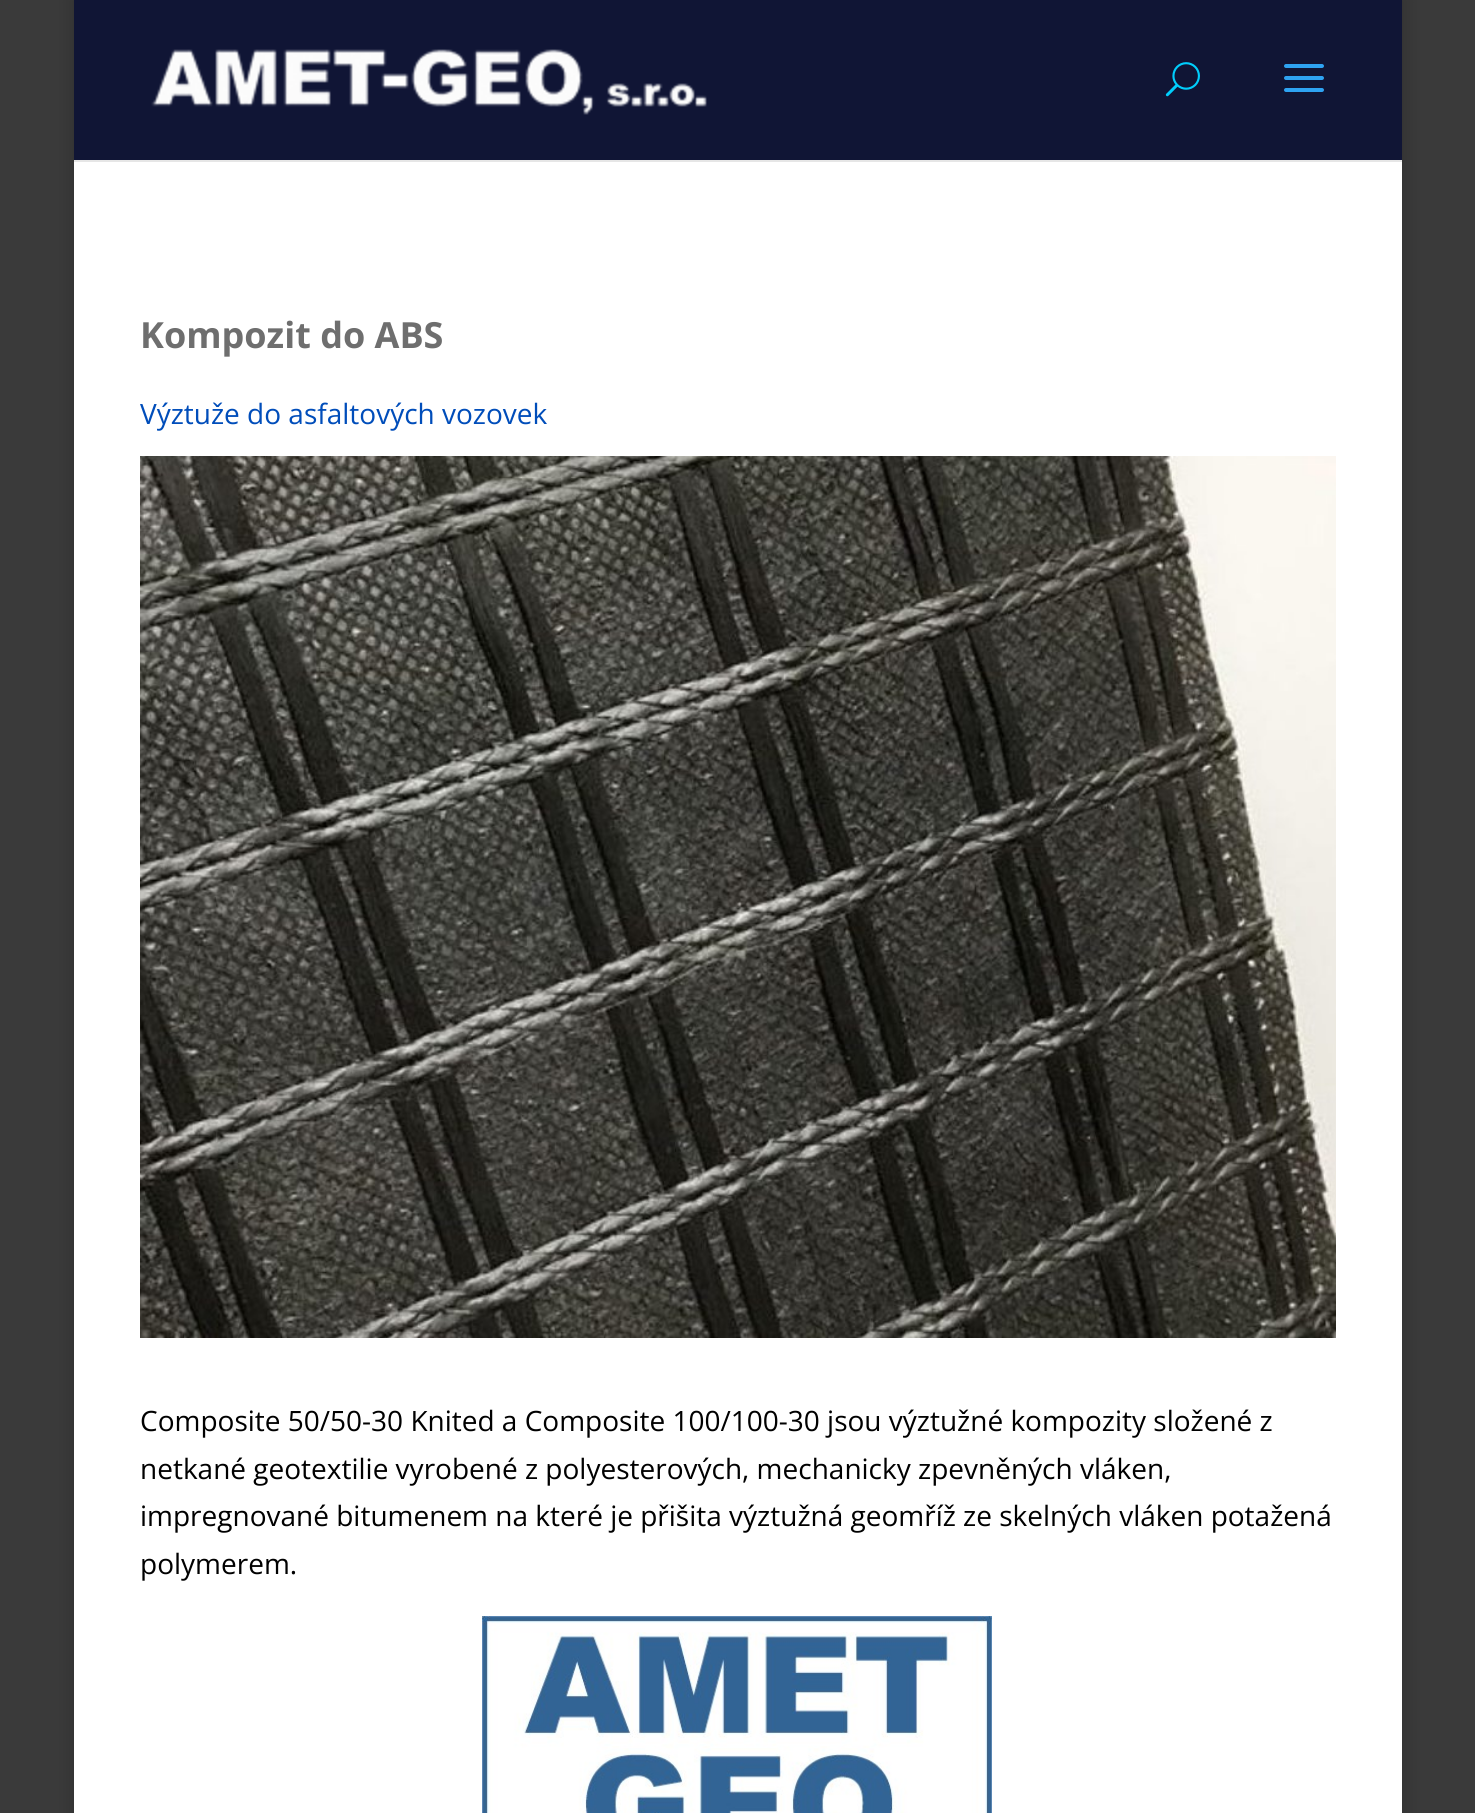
import math
import cairo

surface = cairo.ImageSurface(cairo.FORMAT_RGB24, 1475, 1813)
c = cairo.Context(surface)
options = cairo.FontOptions()
options.set_hint_metrics(cairo.HINT_METRICS_OFF)
options.set_hint_style(cairo.HINT_STYLE_NONE)
c.set_font_options(options)
c.set_miter_limit(4)
def C(code):
 c.set_source_rgb(*(v / 255 for v in bytes.fromhex(code[-6:])))
def F(family, size, italic, bold):
 c.select_font_face(family, cairo.FONT_SLANT_ITALIC if italic else cairo.FONT_SLANT_NORMAL, cairo.FONT_WEIGHT_BOLD if bold else cairo.FONT_WEIGHT_NORMAL)
 c.set_font_size(size)
def T(x, y, s):
 c.move_to(x, y)
 c.show_text(s)
def R(x, y, w, h):
 c.rectangle(x, y, w, h)
 c.fill()
def Q(x, y, w, h, r):
 c.new_sub_path()
 for i, (u, v) in enumerate([(x + w - r, y + h - r), (x + r, y + h - r), (x + r, y + r), (x + w - r, y + r)]):
  c.arc(u, v, r, i * math.pi / 2, (i + 1) * math.pi / 2)
 c.close_path()
def S(x, y, w, h, r, blur, alpha):
 c.push_group_with_content(cairo.CONTENT_ALPHA)
 c.set_operator(cairo.OPERATOR_SOURCE)
 for i in range(15, -16, -2):
  e = blur * i / 6
  if min(w, h) + 2 * e > 0:
   c.set_source_rgba(0, 0, 0, alpha * math.erfc((i - 1) / 8.5) / 2)
   Q(x - e, y - e, w + 2 * e, h + 2 * e, max(0, min(r + e + blur * .6, min(w, h) / 2 + e)))
   c.fill()
 c.mask(c.pop_group())
def I(path, x, y, w, h):
 c.save()
 c.set_source_surface(cairo.ImageSurface.create_from_png(path), x, y)
 c.rectangle(x, y, w, h)
 c.fill()
 c.restore()
C('3a3a3a')
c.paint()
C('000000')
S(74,-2,1328,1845,0,10,.2)
C('e6e6e6')
R(74,160,1328,2)
C('101535')
R(74,0,1328,160)
I('1.png',151,49,556,66)
I('2.png',1165,62,35,35)
I('3.png',1284,64,40,28)
C('ffffff')
R(74,162,1328,1651)
F('Open Sans',36,0,1)
C('6e6e6e')
T(140,348,'Kompozit do ABS')
F('Open Sans',28,0,0)
C('004dba')
T(140,424,'Výztuže do asfaltových vozovek')
I('4.png',140,456,1196,882)
C('000000')
T(140,1431,'Composite 50/50-30 Knited a Composite 100/100-30 jsou výztužné kompozity složené z')
T(140,1479,'netkané geotextilie vyrobené z polyesterových, mechanicky zpevněných vláken,')
T(140,1526,'impregnované bitumenem na které je přišita výztužná geomříž ze skelných vláken potažená')
T(140,1574,'polymerem.')
I('5.png',482,1616,510,197)
surface.write_to_png('o.png')
